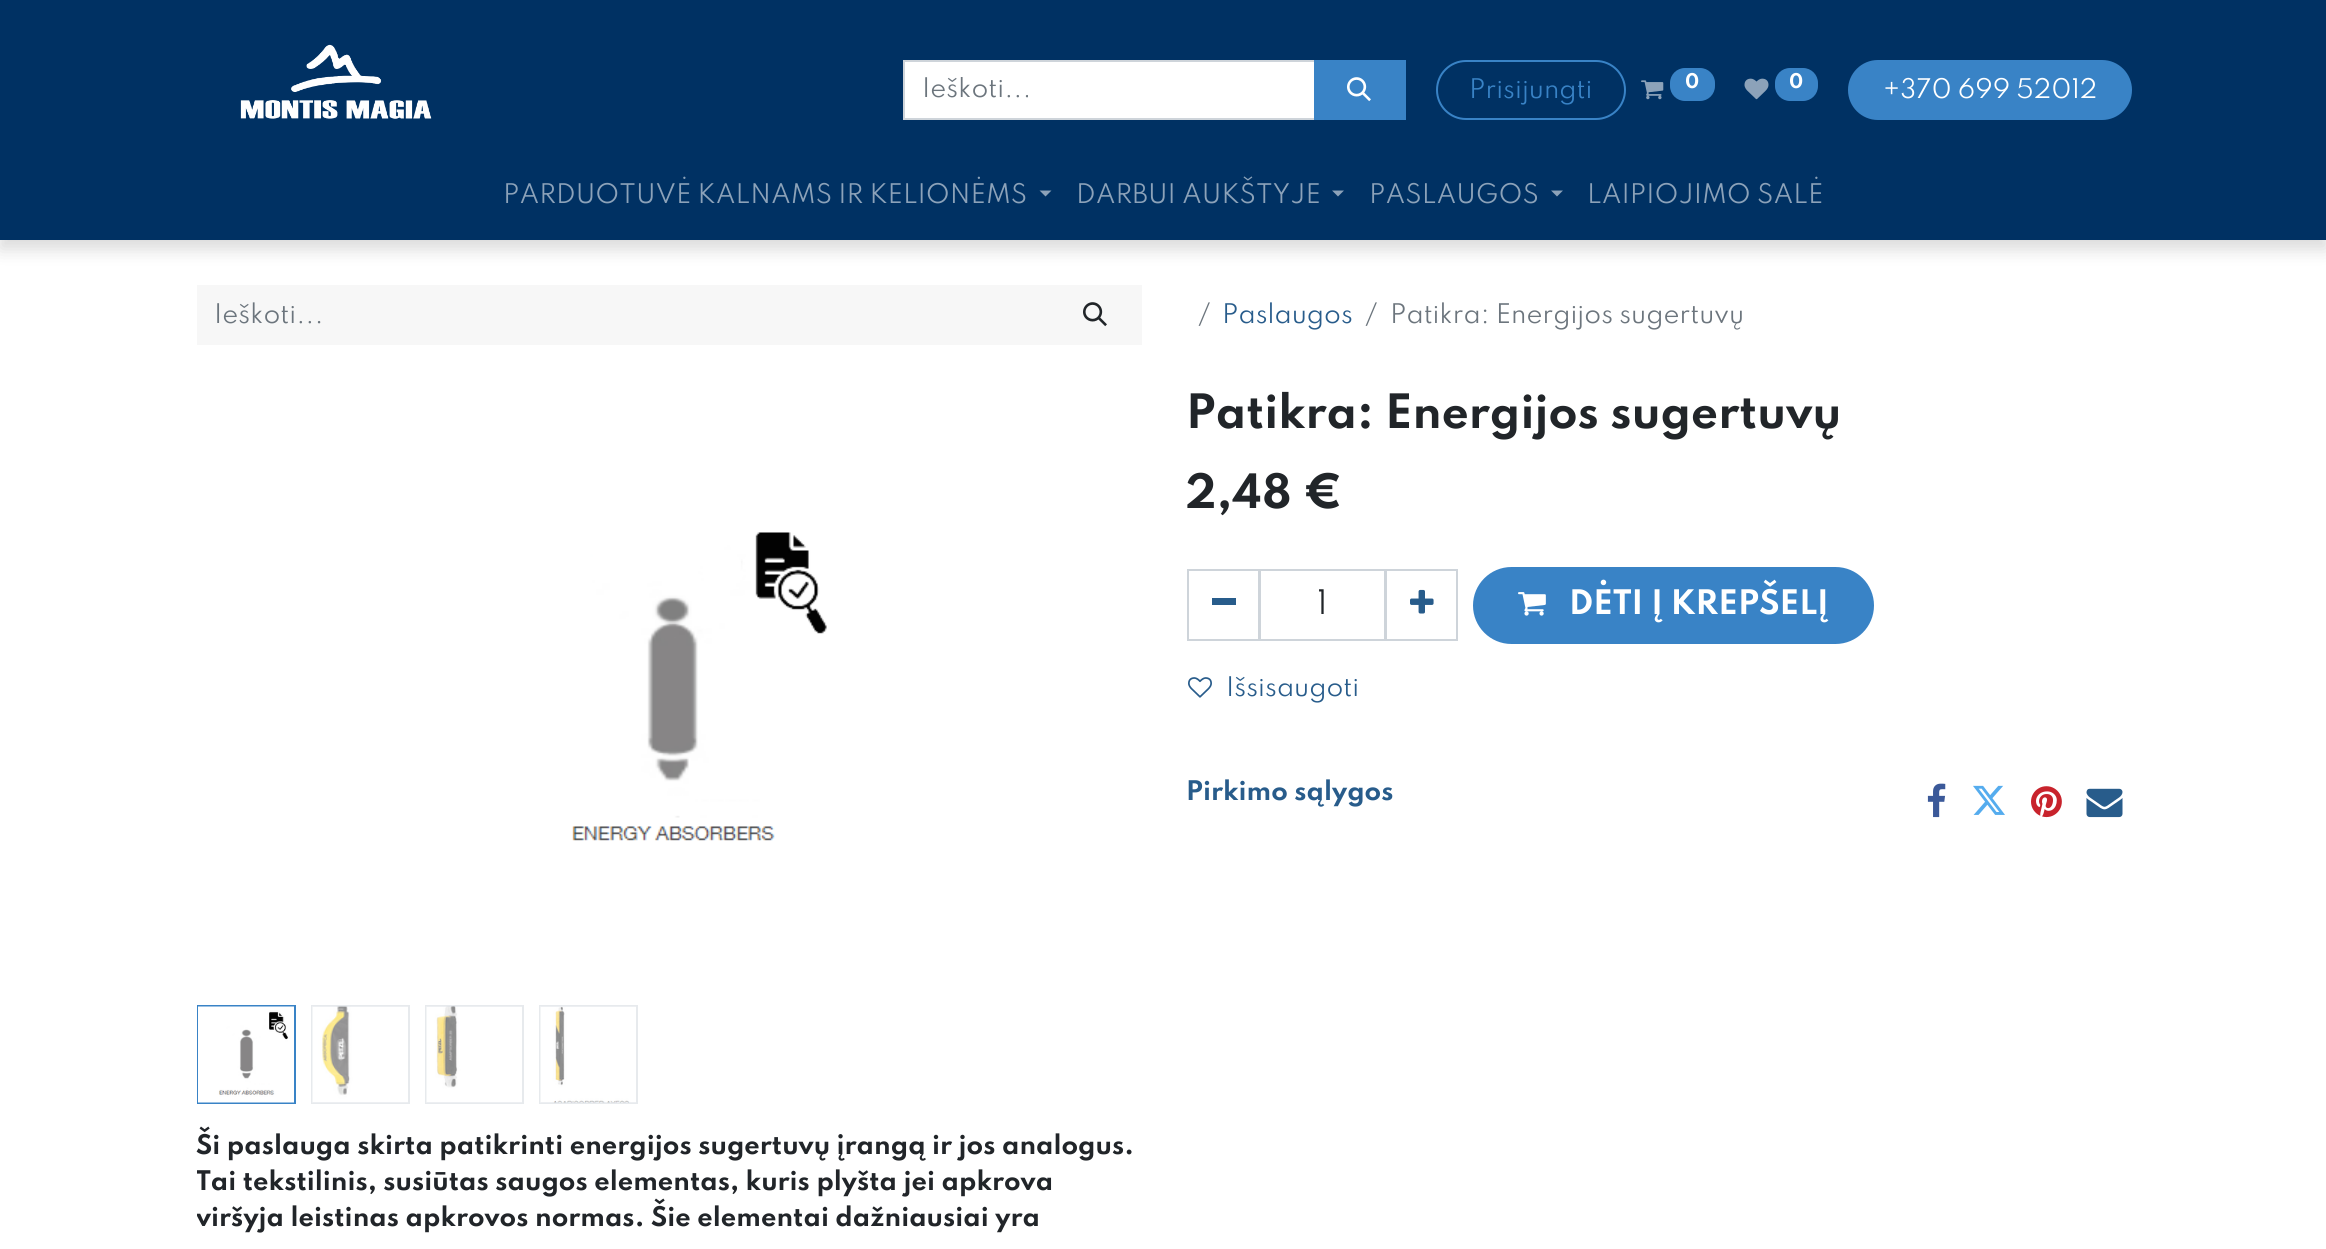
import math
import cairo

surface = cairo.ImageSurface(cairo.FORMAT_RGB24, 2326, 1249)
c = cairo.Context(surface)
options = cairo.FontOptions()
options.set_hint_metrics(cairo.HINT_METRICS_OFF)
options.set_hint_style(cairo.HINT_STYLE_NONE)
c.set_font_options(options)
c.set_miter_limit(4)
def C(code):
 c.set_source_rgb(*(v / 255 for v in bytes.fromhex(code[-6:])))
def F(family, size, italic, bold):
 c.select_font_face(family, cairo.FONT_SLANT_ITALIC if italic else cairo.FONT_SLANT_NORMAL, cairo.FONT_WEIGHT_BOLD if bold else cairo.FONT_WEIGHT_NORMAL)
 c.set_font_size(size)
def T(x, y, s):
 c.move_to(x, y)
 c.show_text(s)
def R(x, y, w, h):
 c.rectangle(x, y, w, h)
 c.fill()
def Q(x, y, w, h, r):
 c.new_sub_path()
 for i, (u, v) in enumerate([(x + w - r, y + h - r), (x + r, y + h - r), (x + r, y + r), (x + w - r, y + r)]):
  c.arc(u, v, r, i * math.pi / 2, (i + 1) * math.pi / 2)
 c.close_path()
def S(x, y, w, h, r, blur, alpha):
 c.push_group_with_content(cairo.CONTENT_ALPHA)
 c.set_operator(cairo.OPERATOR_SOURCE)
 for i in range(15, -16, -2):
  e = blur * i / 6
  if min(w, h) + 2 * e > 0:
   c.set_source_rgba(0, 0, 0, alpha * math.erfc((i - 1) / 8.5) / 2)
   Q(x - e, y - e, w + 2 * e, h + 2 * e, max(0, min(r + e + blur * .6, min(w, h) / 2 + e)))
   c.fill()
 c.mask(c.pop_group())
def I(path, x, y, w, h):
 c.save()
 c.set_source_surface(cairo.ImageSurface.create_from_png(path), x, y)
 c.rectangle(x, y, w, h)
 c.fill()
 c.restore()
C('ffffff')
c.paint()
C('000000')
S(0,9,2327,240,0,9,.15)
C('003163')
R(0,0,2326,240)
I('1.png',240,44,192,75)
C('ffffff')
c.rectangle(904,61,411,58)
c.fill_preserve()
C('ced4da')
c.stroke()
c.save()
c.rectangle(923,77,334,28)
c.clip()
F('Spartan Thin',24,0,0)
C('6c757d')
T(922,97,'Ieškoti...')
c.restore()
C('3983c6')
R(1314,60,92,60)
I('2.png',1347,77,24,25)
Q(1437,61,188,58,29)
c.stroke()
F('Spartan Thin',24,0,0)
T(1469,98,'Prisijungti')
I('3.png',1641,80,23,20)
Q(1670,68,45,33,15)
c.fill()
F('Spartan Thin',18,0,1)
C('ffffff')
T(1685,88,'0')
I('4.png',1744,78,25,22)
C('3983c6')
Q(1775,68,43,33,15)
c.fill()
C('ffffff')
T(1789,88,'0')
C('3983c6')
Q(1849,61,282,58,29)
c.fill_preserve()
c.stroke()
F('Spartan Thin',24,0,0)
C('ffffff')
T(1883,98,'+370 699 52012')
C('8ca2b9')
T(503,203,'PARDUOTUVĖ KALNAMS IR KELIONĖMS')
c.new_path()
c.move_to(1039.5,190.5)
c.line_to(1051.5,190.5)
c.line_to(1045.5,196.5)
c.close_path()
c.fill()
T(1076,203,'DARBUI AUKŠTYJE')
c.new_path()
c.move_to(1332,190.5)
c.line_to(1344,190.5)
c.line_to(1338,196.5)
c.close_path()
c.fill()
T(1369,203,'PASLAUGOS')
c.new_path()
c.move_to(1551,190.5)
c.line_to(1563,190.5)
c.line_to(1557,196.5)
c.close_path()
c.fill()
T(1587,203,'LAIPIOJIMO SALĖ')
C('f7f7f7')
R(197,285,945,60)
C('6c757d')
T(214,323,'Ieškoti...')
I('5.png',1083,302,24,25)
T(1198,323,'/')
C('285c8b')
T(1222,323,'Paslaugos')
C('6c757d')
T(1365,323,'/')
T(1390,323,'Patikra: Energijos sugertuvų')
F('Spartan Thin',42,0,1)
C('212529')
T(1186,428,'Patikra: Energijos sugertuvų')
T(1186,508,'2,48 €')
c.rectangle(1260,570,125,70)
C('ced4da')
c.stroke()
c.rectangle(1188,570,71,70)
c.stroke()
C('285c8b')
R(1212,598,24,7)
F('Spartan Thin',30,0,0)
C('212529')
T(1317,614,'1')
c.rectangle(1386,570,71,70)
C('ced4da')
c.stroke()
I('6.png',1410,589,24,25)
C('3983c6')
Q(1474,568,399,75,37.5)
c.fill_preserve()
c.stroke()
I('7.png',1518,592,28,24)
F('Spartan Thin',30,0,1)
C('ffffff')
T(1569,614,'DĖTI Į KREPŠELĮ')
I('8.png',1188,677,24,21)
F('Spartan Thin',24,0,0)
C('285c8b')
T(1226,696,'Išsisaugoti')
F('Spartan Thin',24,0,1)
T(1186,800,'Pirkimo sąlygos')
I('9.png',1927,783,19,35)
I('10.png',1973,785,32,30)
I('11.png',2031,786,31,32)
I('12.png',2086,788,37,30)
I('13.png',572,532,255,309)
c.rectangle(198,1006,97,97)
C('3983c6')
c.stroke()
I('14.png',198,1006,96,97)
c.rectangle(312,1006,97,97)
C('e7eaed')
c.stroke()
I('15.png',312,1006,96,97)
c.rectangle(426,1006,97,97)
c.stroke()
I('16.png',426,1006,96,97)
c.rectangle(540,1006,97,97)
c.stroke()
I('17.png',540,1006,96,97)
C('212529')
T(196,1154,'Ši paslauga skirta patikrinti energijos sugertuvų įrangą ir jos analogus.')
c.save()
c.rectangle(197,390,945,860)
c.clip()
T(196,1190,'Tai tekstilinis, susiūtas saugos elementas, kuris plyšta jei apkrova')
T(196,1226,'viršyja leistinas apkrovos normas. Šie elementai dažniausiai yra')
c.restore()
surface.write_to_png('o.png')
